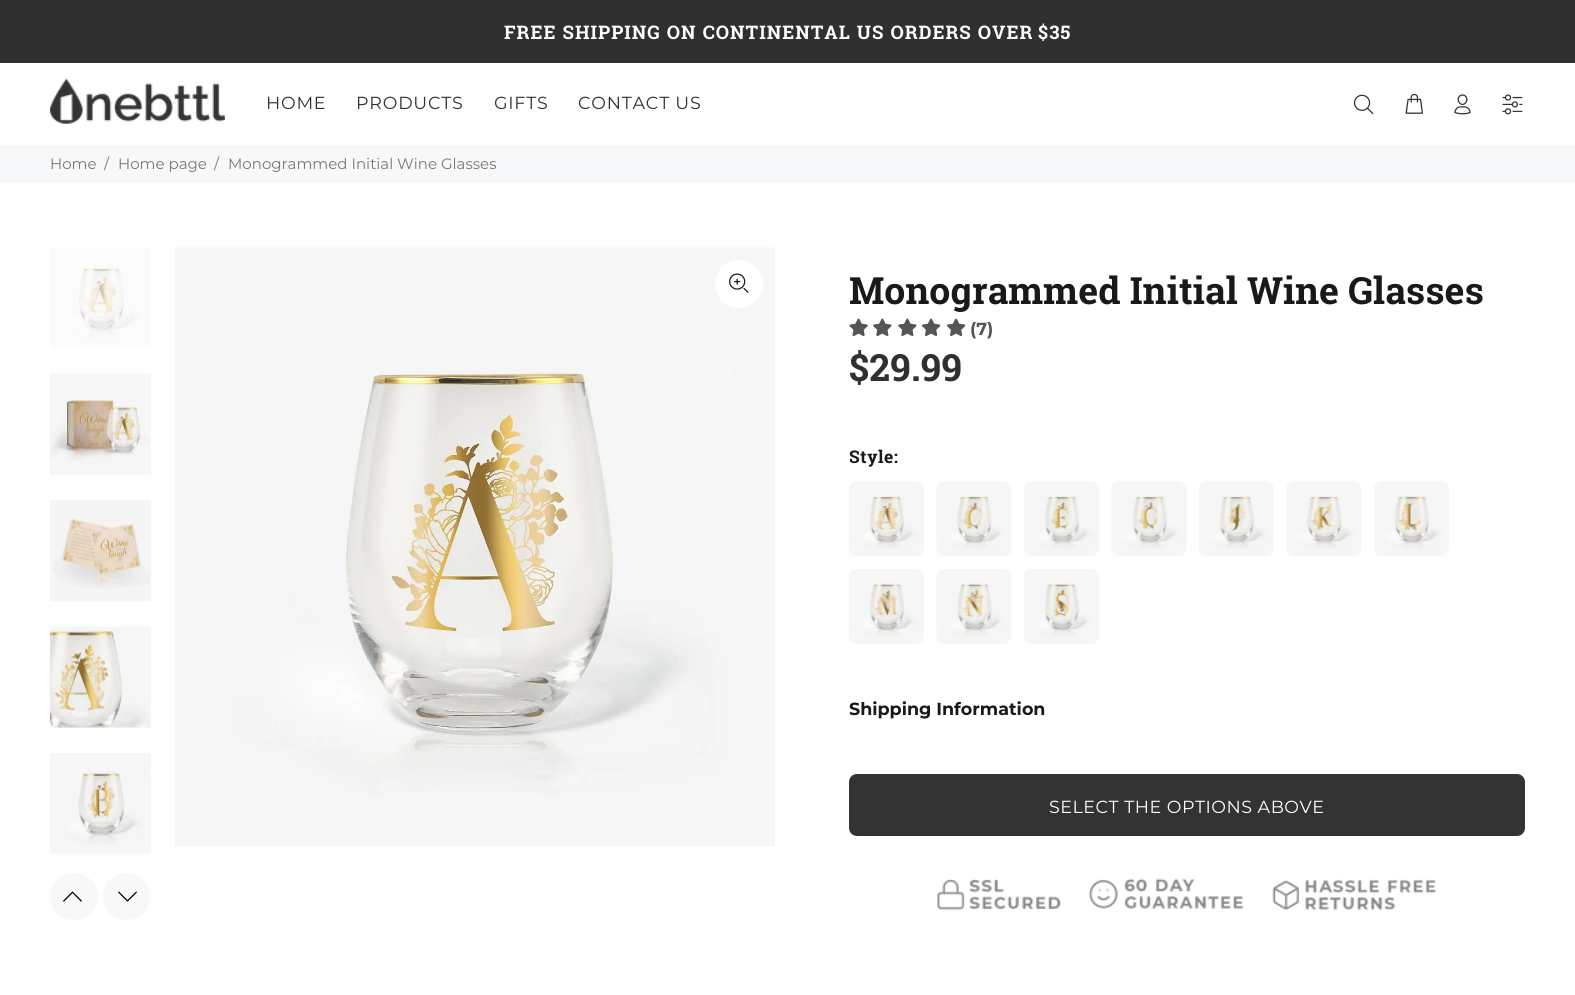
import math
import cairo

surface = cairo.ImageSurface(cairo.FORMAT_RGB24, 1575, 995)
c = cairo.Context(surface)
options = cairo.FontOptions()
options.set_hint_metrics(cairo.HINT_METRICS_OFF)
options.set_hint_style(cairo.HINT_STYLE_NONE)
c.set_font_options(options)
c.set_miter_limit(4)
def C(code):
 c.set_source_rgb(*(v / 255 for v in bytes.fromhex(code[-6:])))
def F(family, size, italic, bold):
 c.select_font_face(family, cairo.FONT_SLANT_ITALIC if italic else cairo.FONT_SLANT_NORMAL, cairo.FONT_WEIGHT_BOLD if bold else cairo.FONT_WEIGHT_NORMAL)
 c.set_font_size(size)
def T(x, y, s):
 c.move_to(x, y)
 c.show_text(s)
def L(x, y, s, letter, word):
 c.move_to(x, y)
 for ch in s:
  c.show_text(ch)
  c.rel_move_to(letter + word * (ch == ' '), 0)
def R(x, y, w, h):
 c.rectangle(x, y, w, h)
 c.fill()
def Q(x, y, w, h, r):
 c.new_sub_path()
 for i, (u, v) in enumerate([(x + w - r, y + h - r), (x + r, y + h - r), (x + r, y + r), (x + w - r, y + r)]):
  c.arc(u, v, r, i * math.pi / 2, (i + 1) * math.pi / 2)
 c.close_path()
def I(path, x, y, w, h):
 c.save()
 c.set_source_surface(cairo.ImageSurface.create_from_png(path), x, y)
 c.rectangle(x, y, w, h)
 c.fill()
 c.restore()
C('ffffff')
c.paint()
C('303030')
R(0,0,1575,63)
F('Roboto Slab',18.75,0,1)
C('ffffff')
L(504,39,'FREE SHIPPING ON CONTINENTAL US ORDERS OVER',1,.5)
L(1038,39,'$35',1,0)
I('1.png',50,78,175,46)
F('Montserrat',17.5,0,0)
C('303030')
L(266,109,'HOME',.75,0)
L(356,109,'PRODUCTS',.75,0)
L(494,109,'GIFTS',.75,0)
L(578,109,'CONTACT US',.75,0)
I('2.png',1353,94,21,21)
I('3.png',1405,93,19,21)
I('4.png',1454,94,17,21)
I('5.png',1502,94,21,21)
C('f7f8fa')
R(0,145,1575,38)
F('Montserrat',15,0,0)
C('777777')
T(50,169,'Home')
T(104,169,'/')
T(118,169,'Home page')
T(214,169,'/')
T(228,169,'Monogrammed Initial Wine Glasses')
I('6.png',50,248,101,101)
I('7.png',50,373,101,102)
I('8.png',50,500,102,102)
I('9.png',50,626,101,102)
I('10.png',50,753,101,101)
C('f7f8fa')
Q(50,873,48,47,23.5)
c.fill()
I('11.png',63,891,19,11)
c.arc(126.5,896.5,23.5,0,2 * math.pi)
c.fill()
I('12.png',118,891,19,11)
I('13.png',175,247,600,599)
C('ffffff')
c.arc(739,284,24,0,2 * math.pi)
c.fill()
I('14.png',729,273,20,20)
F('Roboto Slab',37.5,0,1)
C('191919')
L(849,304,'Monogrammed Initial Wine Glasses',.05,0)
I('15.png',849,318,19,19)
I('16.png',873,318,19,19)
I('16.png',898,318,19,19)
I('17.png',922,318,19,18)
I('17.png',947,318,19,18)
F('Montserrat',17.5,0,1)
C('555555')
T(970,335,'(7)')
F('Roboto Slab',37.5,0,1)
C('303030')
T(849,381,'$29.99')
F('Roboto Slab',17.5,0,1)
C('191919')
L(849,463,'Style:',.5,0)
I('18.png',849,481,75,75)
I('19.png',936,481,76,75)
I('20.png',1024,481,75,75)
I('21.png',1111,481,76,75)
I('22.png',1199,481,75,75)
I('23.png',1286,481,76,75)
I('24.png',1374,481,75,75)
I('25.png',849,569,75,75)
I('26.png',936,569,76,75)
I('27.png',1024,569,75,75)
F('Montserrat',17.5,0,1)
T(849,715,'Shipping Information')
C('333333')
Q(849,774,676,62,8)
c.fill()
F('Montserrat',17.5,0,0)
C('ffffff')
L(1049,813,'SELECT THE OPTIONS ABOVE',.5,0)
I('28.png',937,878,500,33)
surface.write_to_png('o.png')
